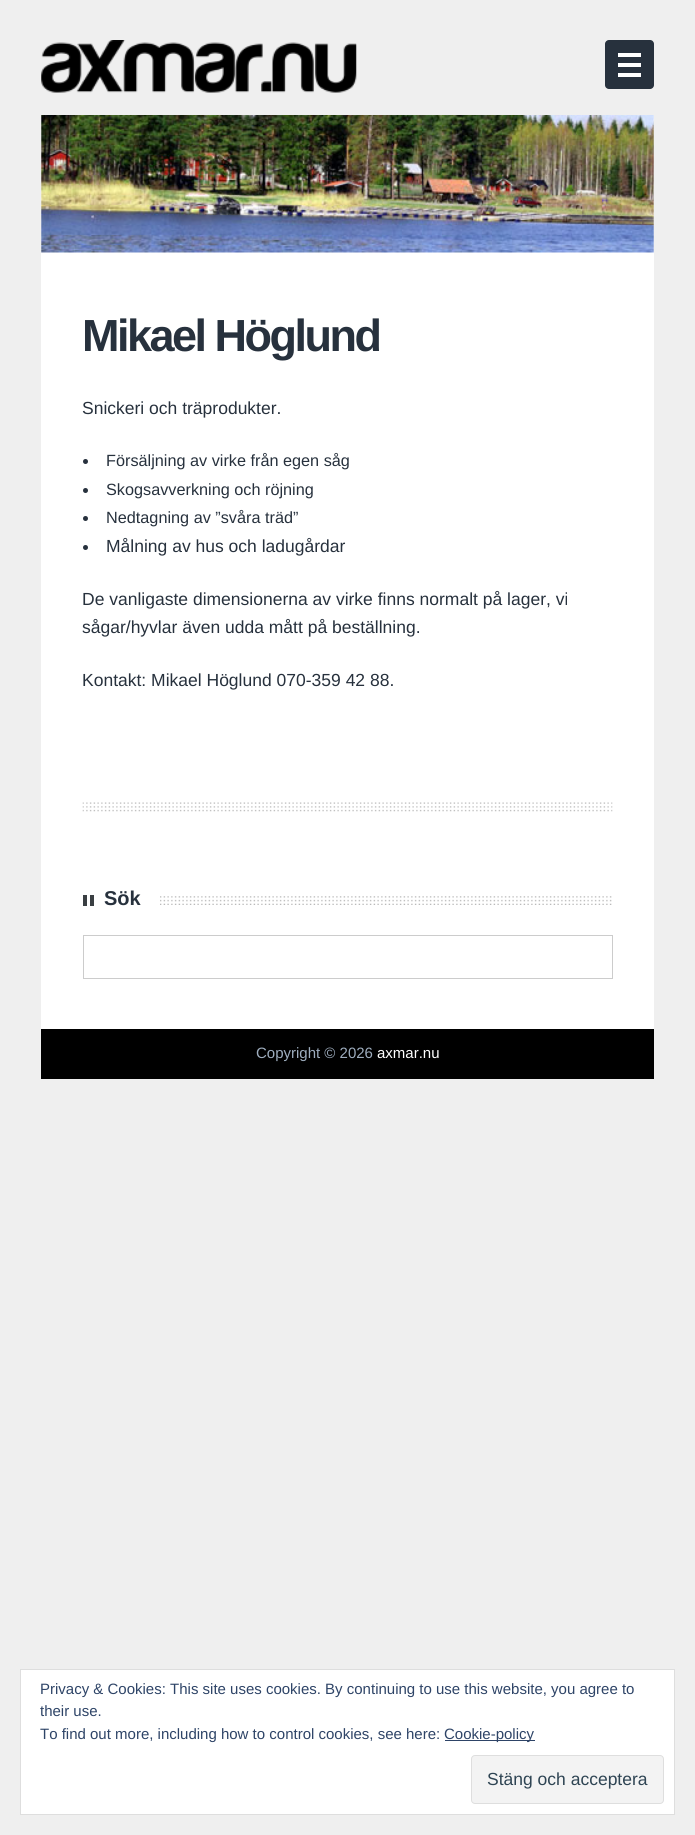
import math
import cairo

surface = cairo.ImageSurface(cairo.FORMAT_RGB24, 695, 1835)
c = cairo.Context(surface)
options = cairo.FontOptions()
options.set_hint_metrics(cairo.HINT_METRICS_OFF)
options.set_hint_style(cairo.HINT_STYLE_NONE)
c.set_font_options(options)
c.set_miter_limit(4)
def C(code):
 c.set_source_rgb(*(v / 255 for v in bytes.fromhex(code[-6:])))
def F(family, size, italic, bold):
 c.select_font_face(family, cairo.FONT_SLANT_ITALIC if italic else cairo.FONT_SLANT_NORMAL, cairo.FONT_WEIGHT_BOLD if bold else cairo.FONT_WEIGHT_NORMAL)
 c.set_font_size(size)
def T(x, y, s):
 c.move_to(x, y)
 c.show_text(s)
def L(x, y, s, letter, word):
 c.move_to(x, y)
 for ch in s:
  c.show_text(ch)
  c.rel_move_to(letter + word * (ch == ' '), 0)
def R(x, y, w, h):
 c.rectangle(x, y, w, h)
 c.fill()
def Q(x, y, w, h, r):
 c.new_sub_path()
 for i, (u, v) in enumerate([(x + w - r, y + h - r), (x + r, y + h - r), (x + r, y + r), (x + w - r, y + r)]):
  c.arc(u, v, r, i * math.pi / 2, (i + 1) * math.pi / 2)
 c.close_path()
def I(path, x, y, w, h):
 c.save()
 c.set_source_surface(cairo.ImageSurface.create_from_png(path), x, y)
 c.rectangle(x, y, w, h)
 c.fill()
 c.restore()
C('efefef')
c.paint()
I('1.png',41,40,316,53)
C('27313d')
Q(605,40,49,49,4)
c.fill()
C('ffffff')
R(618,53,23,4)
R(618,63,23,4)
R(618,73,23,4)
R(41,115,613,914)
I('2.png',41,115,613,138)
F('Liberation Sans',45,0,1)
C('27313d')
L(82,351,'Mikael Höglund',-2.5,0)
F('Liberation Sans',17.5,0,0)
T(82,414,'Snickeri och träprodukter.')
c.new_path()
c.arc(85.5,461.5,2.5,0,2 * math.pi)
c.fill()
F('Liberation Sans',16.25,0,0)
T(106,466,'Försäljning av virke från egen såg')
c.new_path()
c.arc(85.5,490.5,2.5,0,2 * math.pi)
c.fill()
T(106,495,'Skogsavverkning och röjning')
c.new_path()
c.arc(85.5,518.5,2.5,0,2 * math.pi)
c.fill()
T(106,523,'Nedtagning av ”svåra träd”')
c.new_path()
c.arc(85.5,547.5,2.5,0,2 * math.pi)
c.fill()
F('Liberation Sans',17.5,0,0)
T(106,552,'Målning av hus och ladugårdar')
T(82,605,'De vanligaste dimensionerna av virke finns normalt på lager, vi')
T(82,633,'sågar/hyvlar även udda mått på beställning.')
T(82,686,'Kontakt: Mikael Höglund 070-359 42 88.')
I('3.png',82,802,531,10)
C('3a3f43')
R(90,895,4,11)
R(83,895,4,11)
F('Liberation Sans',20,0,1)
C('27313d')
T(104,905,'Sök')
I('4.png',160,896,452,9)
c.rectangle(83.5,935.5,529,43)
C('cccccc')
c.set_line_width(1)
c.stroke()
C('000000')
R(41,1029,613,50)
F('Liberation Sans',15,0,0)
C('9eadbe')
T(256,1058,'Copyright © 2026')
C('ffffff')
T(377,1058,'axmar.nu')
c.rectangle(20.5,1669.5,654,145)
c.fill_preserve()
C('dedede')
c.stroke()
C('2e4467')
T(40,1694,'Privacy & Cookies: This site uses cookies. By continuing to use this website, you agree to')
T(40,1716,'their use.')
T(40,1739,'To find out more, including how to control cookies, see here:')
R(445,1740,90,1)
T(444,1739,'Cookie-policy')
C('f3f3f3')
Q(471.5,1755.5,192,48,3.5)
c.fill_preserve()
C('dedede')
c.stroke()
F('Liberation Sans',17.5,0,0)
C('2e4453')
T(487,1785,'Stäng och acceptera')
surface.write_to_png('o.png')
